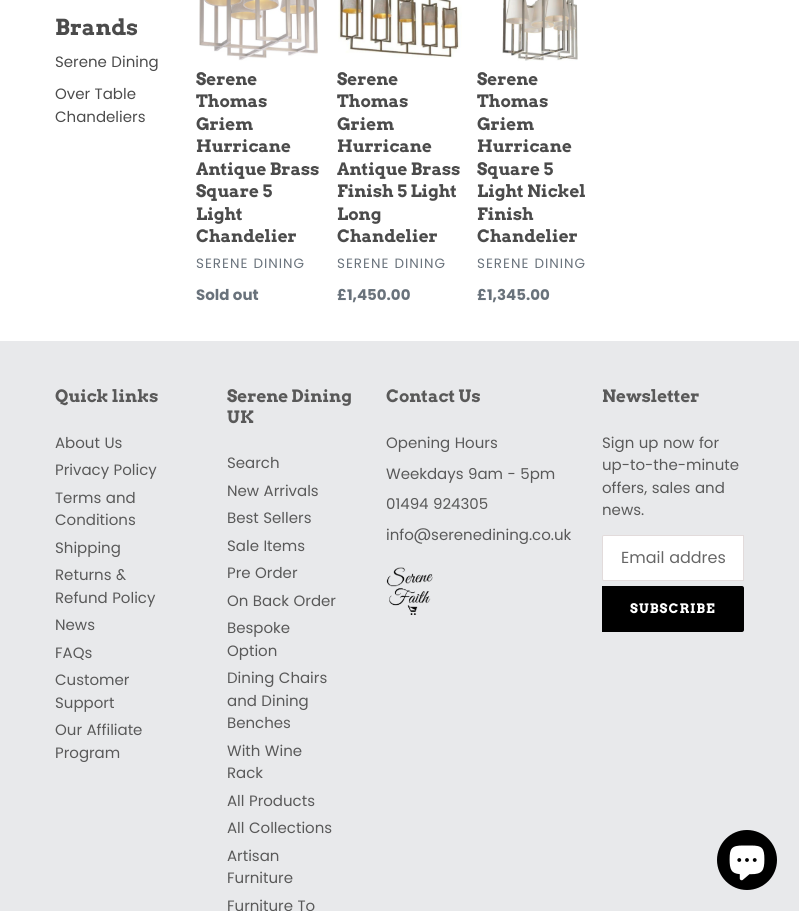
import math
import cairo

surface = cairo.ImageSurface(cairo.FORMAT_RGB24, 799, 911)
c = cairo.Context(surface)
options = cairo.FontOptions()
options.set_hint_metrics(cairo.HINT_METRICS_OFF)
options.set_hint_style(cairo.HINT_STYLE_NONE)
c.set_font_options(options)
c.set_miter_limit(4)
def C(code):
 c.set_source_rgb(*(v / 255 for v in bytes.fromhex(code[-6:])))
def F(family, size, italic, bold):
 c.select_font_face(family, cairo.FONT_SLANT_ITALIC if italic else cairo.FONT_SLANT_NORMAL, cairo.FONT_WEIGHT_BOLD if bold else cairo.FONT_WEIGHT_NORMAL)
 c.set_font_size(size)
def T(x, y, s):
 c.move_to(x, y)
 c.show_text(s)
def L(x, y, s, letter, word):
 c.move_to(x, y)
 for ch in s:
  c.show_text(ch)
  c.rel_move_to(letter + word * (ch == ' '), 0)
def R(x, y, w, h):
 c.rectangle(x, y, w, h)
 c.fill()
def I(path, x, y, w, h):
 c.save()
 c.set_source_surface(cairo.ImageSurface.create_from_png(path), x, y)
 c.rectangle(x, y, w, h)
 c.fill()
 c.restore()
C('ffffff')
c.paint()
F('Arvo',22,0,1)
C('4b4b4b')
T(55,35,'Brands')
F('Poppins',15,0,0)
T(55,67,'Serene Dining')
T(55,99,'Over Table')
T(55,122,'Chandeliers')
I('1.png',199,0,119,61)
F('Arvo',17,0,1)
T(196,85,'Serene')
T(196,107,'Thomas')
T(196,130,'Griem')
T(196,152,'Hurricane')
T(196,175,'Antique Brass')
T(196,197,'Square 5')
T(196,220,'Light')
T(196,242,'Chandelier')
F('Poppins',13.5,0,0)
C('69727b')
L(196,268,'SERENE DINING',1,0)
F('Poppins',15,0,1)
T(196,300,'Sold out')
I('2.png',338,0,124,58)
F('Arvo',17,0,1)
C('4b4b4b')
T(337,85,'Serene')
T(337,107,'Thomas')
T(337,130,'Griem')
T(337,152,'Hurricane')
T(337,175,'Antique Brass')
T(337,197,'Finish 5 Light')
T(337,220,'Long')
T(337,242,'Chandelier')
F('Poppins',13.5,0,0)
C('69727b')
L(337,268,'SERENE DINING',1,0)
F('Poppins',15,0,1)
T(337,300,'£1,450.00')
I('3.png',502,0,76,61)
F('Arvo',17,0,1)
C('4b4b4b')
T(477,85,'Serene')
T(477,107,'Thomas')
T(477,130,'Griem')
T(477,152,'Hurricane')
T(477,175,'Square 5')
T(477,197,'Light Nickel')
T(477,220,'Finish')
T(477,242,'Chandelier')
F('Poppins',13.5,0,0)
C('69727b')
L(477,268,'SERENE DINING',1,0)
F('Poppins',15,0,1)
T(477,300,'£1,345.00')
C('e8e9eb')
R(0,341,799,570)
F('Arvo',17,0,1)
C('595959')
T(55,402,'Quick links')
F('Poppins',15,0,0)
T(55,448,'About Us')
T(55,475,'Privacy Policy')
T(55,503,'Terms and')
T(55,525,'Conditions')
T(55,553,'Shipping')
T(55,580,'Returns &')
T(55,603,'Refund Policy')
T(55,630,'News')
T(55,658,'FAQs')
T(55,685,'Customer')
T(55,708,'Support')
T(55,735,'Our Affiliate')
T(55,758,'Program')
F('Arvo',17,0,1)
T(227,402,'Serene Dining')
T(227,423,'UK')
F('Poppins',15,0,0)
T(227,468,'Search')
T(227,496,'New Arrivals')
T(227,523,'Best Sellers')
T(227,551,'Sale Items')
T(227,578,'Pre Order')
T(227,606,'On Back Order')
T(227,633,'Bespoke')
T(227,656,'Option')
T(227,683,'Dining Chairs')
T(227,706,'and Dining')
T(227,728,'Benches')
T(227,756,'With Wine')
T(227,778,'Rack')
T(227,806,'All Products')
T(227,833,'All Collections')
T(227,861,'Artisan')
T(227,883,'Furniture')
T(227,911,'Furniture To')
F('Arvo',17,0,1)
T(386,402,'Contact Us')
F('Poppins',15,0,0)
T(386,448,'Opening Hours')
T(386,479,'Weekdays 9am - 5pm')
T(386,509,'01494 924305')
T(386,540,'info@serenedining.co.uk')
I('4.png',386,567,47,48)
F('Arvo',17,0,1)
T(602,402,'Newsletter')
F('Poppins',15,0,0)
T(602,448,'Sign up now for')
T(602,470,'up-to-the-minute')
T(602,493,'offers, sales and')
T(602,515,'news.')
C('ffffff')
c.new_path()
c.move_to(604,535.5)
c.line_to(743.5,535.5)
c.line_to(743.5,580.5)
c.line_to(604,580.5)
c.curve_to(603,580.5,602.5,580,602.5,579)
c.line_to(602.5,537)
c.curve_to(602.5,536,603,535.5,604,535.5)
c.close_path()
c.fill_preserve()
C('e2dbdb')
c.set_line_width(1)
c.stroke()
F('Poppins',16,0,0)
C('666666')
T(621,563,'Email addres')
C('000000')
c.new_path()
c.move_to(602,586)
c.line_to(742,586)
c.curve_to(743,586,744,587,744,588)
c.line_to(744,630)
c.curve_to(744,631,743,632,742,632)
c.line_to(602,632)
c.close_path()
c.fill()
F('Arvo',13,0,1)
C('ffffff')
L(630,613,'SUBSCRIBE',1,0)
C('000000')
c.new_path()
c.arc(747,860,30,0,2 * math.pi)
c.fill()
I('5.png',729,845,36,36)
surface.write_to_png('o.png')
